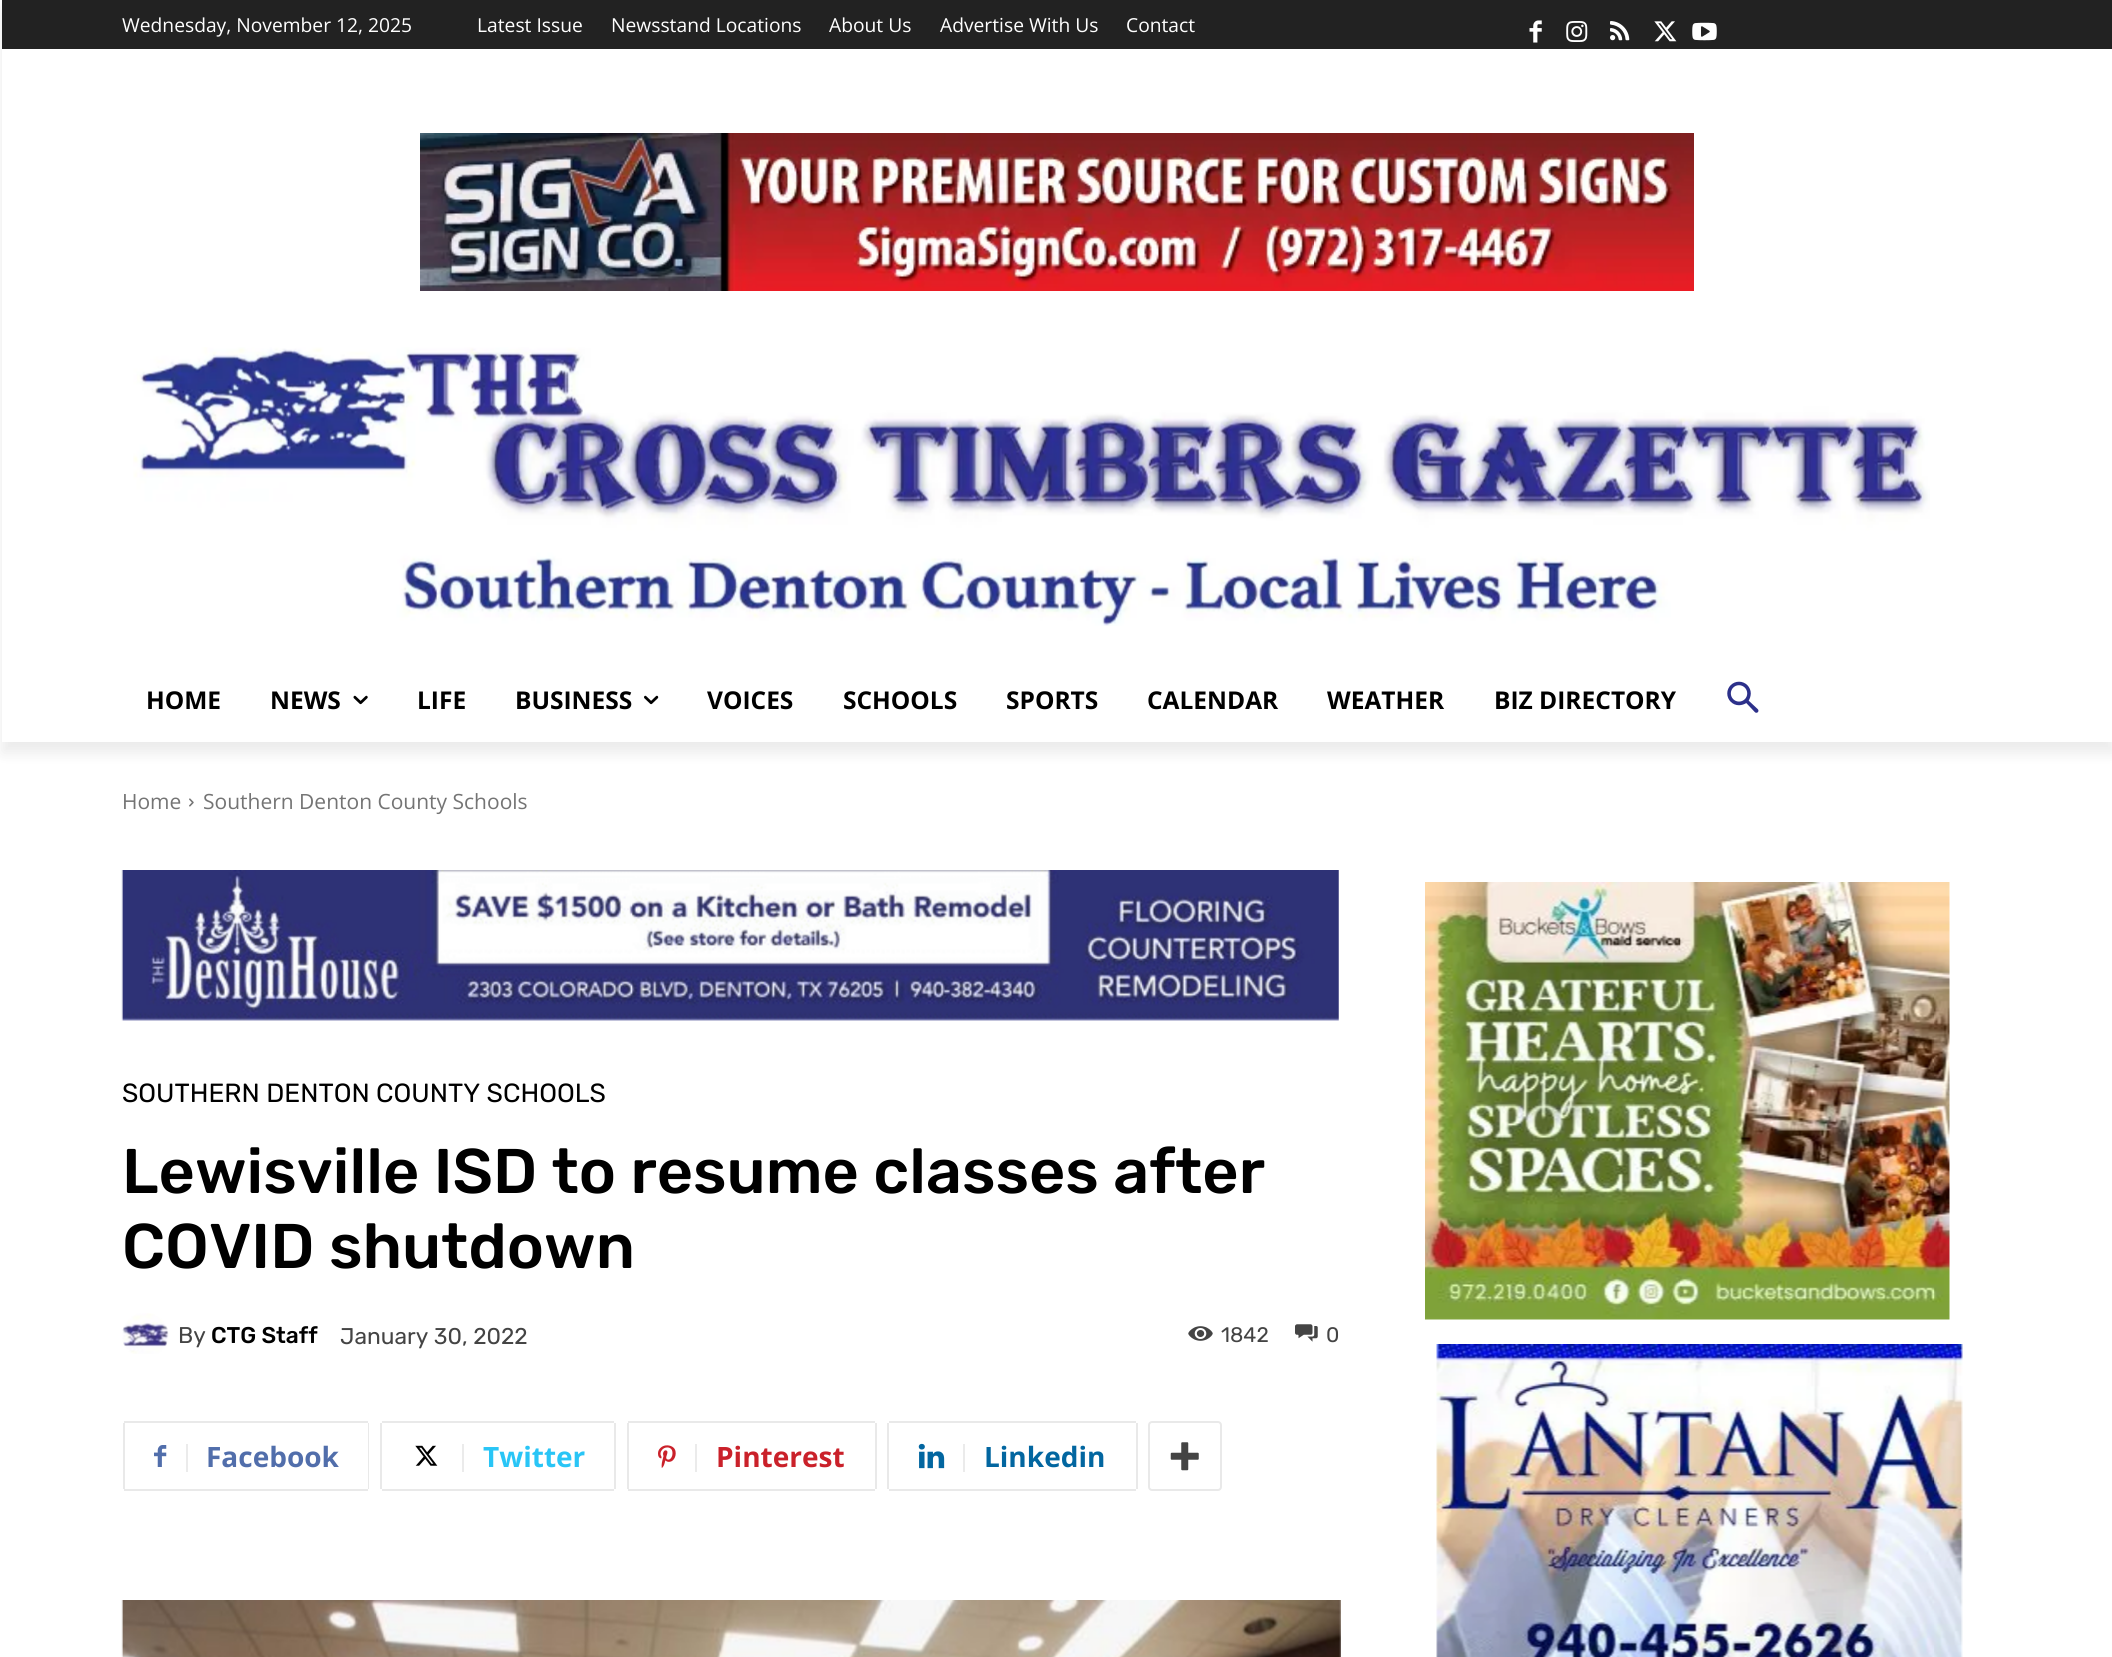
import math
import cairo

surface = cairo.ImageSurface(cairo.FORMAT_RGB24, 2112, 1657)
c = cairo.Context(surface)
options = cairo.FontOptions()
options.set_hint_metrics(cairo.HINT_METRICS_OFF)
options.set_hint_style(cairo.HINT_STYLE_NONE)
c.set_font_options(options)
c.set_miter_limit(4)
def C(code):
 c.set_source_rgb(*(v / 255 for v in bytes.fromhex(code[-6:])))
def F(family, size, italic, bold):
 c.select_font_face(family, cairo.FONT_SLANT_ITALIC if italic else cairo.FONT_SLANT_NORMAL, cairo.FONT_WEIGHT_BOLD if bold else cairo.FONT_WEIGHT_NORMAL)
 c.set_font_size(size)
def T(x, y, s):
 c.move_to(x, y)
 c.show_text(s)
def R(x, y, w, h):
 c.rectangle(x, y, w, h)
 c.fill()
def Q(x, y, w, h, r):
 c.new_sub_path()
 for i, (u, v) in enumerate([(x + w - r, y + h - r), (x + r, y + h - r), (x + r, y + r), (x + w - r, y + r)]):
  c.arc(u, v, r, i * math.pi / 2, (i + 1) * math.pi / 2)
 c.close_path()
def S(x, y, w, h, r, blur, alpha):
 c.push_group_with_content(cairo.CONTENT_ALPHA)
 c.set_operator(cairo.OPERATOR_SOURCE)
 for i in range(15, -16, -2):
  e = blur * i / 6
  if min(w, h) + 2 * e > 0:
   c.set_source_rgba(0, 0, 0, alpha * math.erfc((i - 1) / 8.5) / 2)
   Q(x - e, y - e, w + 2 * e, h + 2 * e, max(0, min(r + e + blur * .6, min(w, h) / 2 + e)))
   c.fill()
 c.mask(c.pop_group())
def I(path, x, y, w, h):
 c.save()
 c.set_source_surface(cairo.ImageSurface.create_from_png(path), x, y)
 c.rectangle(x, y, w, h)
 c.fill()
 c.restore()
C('ffffff')
c.paint()
C('222222')
R(2,0,2110,49)
I('1.png',1529,20,13,23)
I('2.png',1566,21,22,21)
I('3.png',1610,21,20,20)
I('4.png',1654,21,23,21)
I('5.png',1692,22,25,19)
I('6.png',420,133,1274,158)
I('7.png',133,347,1797,279)
c.save()
c.set_fill_rule(cairo.FILL_RULE_EVEN_ODD)
c.new_path()
c.move_to(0,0)
c.line_to(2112,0)
c.line_to(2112,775)
c.line_to(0,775)
c.close_path()
c.move_to(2,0)
c.line_to(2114,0)
c.line_to(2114,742)
c.line_to(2,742)
c.close_path()
c.clip()
C('000000')
S(2,11,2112,742,0,7,.08)
c.restore()
F('Open Sans',19.25,0,0)
C('ffffff')
T(122,32,'Wednesday, November 12, 2025')
T(477,32,'Latest Issue')
T(611,32,'Newsstand Locations')
T(829,32,'About Us')
T(940,32,'Advertise With Us')
T(1126,32,'Contact')
F('Open Sans',24.5,0,1)
C('000000')
T(146,709,'HOME')
T(270,709,'NEWS')
I('8.png',353,695,15,10)
T(417,709,'LIFE')
T(515,709,'BUSINESS')
I('9.png',644,695,15,10)
T(707,709,'VOICES')
T(843,709,'SCHOOLS')
T(1006,709,'SPORTS')
T(1147,709,'CALENDAR')
T(1327,709,'WEATHER')
T(1494,709,'BIZ DIRECTORY')
I('10.png',1727,681,32,32)
F('Open Sans',21,0,0)
C('747474')
T(122,809,'Home')
I('11.png',189,798,5,9)
T(203,809,'Southern Denton County Schools')
I('12.png',121,870,1218,151)
F('Rubik',26.25,0,0)
C('000000')
T(122,1102,'SOUTHERN DENTON COUNTY SCHOOLS')
F('Rubik Medium',63,0,0)
T(122,1193,'Lewisville ISD to resume classes after')
T(122,1268,'COVID shutdown')
I('13.png',122,1313,47,41)
F('Rubik',22.75,0,0)
C('444444')
T(178,1343,'By')
F('Rubik Medium',22.75,0,0)
C('000000')
T(211,1343,'CTG Staff')
F('Rubik',22.75,0,0)
C('444444')
T(340,1344,'January 30, 2022')
I('14.png',1188,1326,25,15)
F('Rubik',21,0,0)
T(1221,1342,'1842')
I('15.png',1295,1324,23,18)
T(1326,1342,'0')
C('e9e9e9')
R(123,1423,2,66)
I('16.png',154,1445,13,22)
R(124,1421,244,2)
R(368,1423,1,66)
R(124,1489,244,2)
C('ebebeb')
R(186,1444,2,28)
F('Open Sans',28,0,1)
C('516eab')
T(206,1467,'Facebook')
C('e9e9e9')
R(380,1423,2,66)
I('17.png',415,1445,23,21)
R(382,1421,232,2)
R(614,1423,2,66)
R(382,1489,232,2)
C('ebebeb')
R(462,1444,2,28)
C('29c5f6')
T(483,1467,'Twitter')
C('e9e9e9')
R(627,1423,2,66)
I('18.png',658,1445,18,23)
R(628,1421,247,2)
R(875,1423,2,66)
R(628,1489,247,2)
C('ebebeb')
R(695,1444,2,28)
C('ca212a')
T(716,1467,'Pinterest')
C('e9e9e9')
R(887,1423,2,66)
I('19.png',918,1443,27,26)
R(889,1421,247,2)
R(1136,1423,2,66)
R(889,1489,247,2)
C('ebebeb')
R(963,1444,2,28)
C('0266a0')
T(984,1467,'Linkedin')
Q(1149,1422,72,68,3)
C('e9e9e9')
c.stroke()
I('20.png',1170,1442,29,29)
I('21.png',121,1600,1220,57)
I('22.png',1425,882,525,438)
I('23.png',1436,1344,527,313)
surface.write_to_png('o.png')
